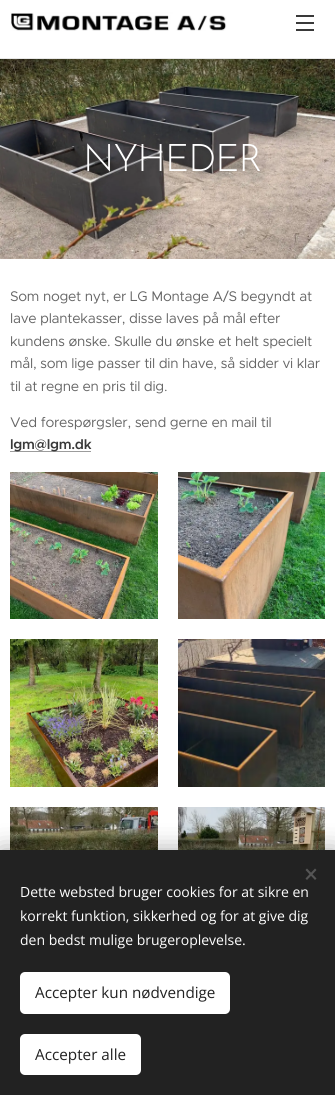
import math
import cairo

surface = cairo.ImageSurface(cairo.FORMAT_RGB24, 335, 1095)
c = cairo.Context(surface)
options = cairo.FontOptions()
options.set_hint_metrics(cairo.HINT_METRICS_OFF)
options.set_hint_style(cairo.HINT_STYLE_NONE)
c.set_font_options(options)
c.set_miter_limit(4)
def C(code):
 c.set_source_rgb(*(v / 255 for v in bytes.fromhex(code[-6:])))
def F(family, size, italic, bold):
 c.select_font_face(family, cairo.FONT_SLANT_ITALIC if italic else cairo.FONT_SLANT_NORMAL, cairo.FONT_WEIGHT_BOLD if bold else cairo.FONT_WEIGHT_NORMAL)
 c.set_font_size(size)
def T(x, y, s):
 c.move_to(x, y)
 c.show_text(s)
def L(x, y, s, letter, word):
 c.move_to(x, y)
 for ch in s:
  c.show_text(ch)
  c.rel_move_to(letter + word * (ch == ' '), 0)
def R(x, y, w, h):
 c.rectangle(x, y, w, h)
 c.fill()
def Q(x, y, w, h, r):
 c.new_sub_path()
 for i, (u, v) in enumerate([(x + w - r, y + h - r), (x + r, y + h - r), (x + r, y + r), (x + w - r, y + r)]):
  c.arc(u, v, r, i * math.pi / 2, (i + 1) * math.pi / 2)
 c.close_path()
def S(x, y, w, h, r, blur, alpha):
 c.push_group_with_content(cairo.CONTENT_ALPHA)
 c.set_operator(cairo.OPERATOR_SOURCE)
 for i in range(15, -16, -2):
  e = blur * i / 6
  if min(w, h) + 2 * e > 0:
   c.set_source_rgba(0, 0, 0, alpha * math.erfc((i - 1) / 8.5) / 2)
   Q(x - e, y - e, w + 2 * e, h + 2 * e, max(0, min(r + e + blur * .6, min(w, h) / 2 + e)))
   c.fill()
 c.mask(c.pop_group())
def I(path, x, y, w, h):
 c.save()
 c.set_source_surface(cairo.ImageSurface.create_from_png(path), x, y)
 c.rectangle(x, y, w, h)
 c.fill()
 c.restore()
C('ffffff')
c.paint()
I('1.png',10,12,217,19)
C('393939')
R(296,22,18,2)
R(296,15,18,2)
R(296,29,18,2)
C('e8e8e8')
R(0,58,335,1)
I('2.png',0,59,335,200)
F('Josefin Sans Light',38,0,0)
C('ffffff')
L(83,171,'NYHEDER',-1,0)
F('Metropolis',14,0,0)
C('666666')
L(10,301,'Som noget nyt, er LG Montage A/S begyndt at',-.28,0)
L(10,323,'lave plantekasser, disse laves på mål efter',-.28,0)
L(10,346,'kundens ønske. Skulle du ønske et helt specielt',-.28,0)
L(10,368,'mål, som lige passer til din have, så sidder vi klar',-.28,0)
L(10,391,'til at regne en pris til dig.',-.28,0)
L(10,427,'Ved forespørgsler, send gerne en mail til',-.28,0)
C('9c9c9c')
R(10,451,81,1)
F('Metropolis SemiBold',14,0,0)
C('393939')
L(10,449,'lgm@lgm.dk',-.28,0)
I('3.png',10,472,148,147)
I('4.png',178,472,147,147)
I('5.png',10,639,148,148)
I('6.png',178,639,147,148)
I('7.png',10,807,148,43)
I('8.png',178,807,147,43)
C('000000')
S(0,850,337,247,0,12.5,.33)
C('222222')
R(0,850,335,245)
C('555555')
c.new_path()
c.move_to(305.5,878.5)
c.line_to(315,868.5)
c.line_to(316.5,870)
c.line_to(307,880)
c.close_path()
c.fill()
c.new_path()
c.move_to(307,868.5)
c.line_to(316.5,878.5)
c.line_to(315,880)
c.line_to(305.5,870)
c.close_path()
c.fill()
F('Open Sans',14,0,0)
C('ffffff')
T(20,897,'Dette websted bruger cookies for at sikre en')
T(20,921,'korrekt funktion, sikkerhed og for at give dig')
T(20,945,'den bedst mulige brugeroplevelse.')
Q(20,972,210,42,5)
c.fill()
F('Open Sans',15.25,0,0)
C('222222')
T(35,998,'Accepter kun nødvendige')
C('ffffff')
Q(20,1034,121,41,5)
c.fill()
C('222222')
T(35,1060,'Accepter alle')
surface.write_to_png('o.png')
